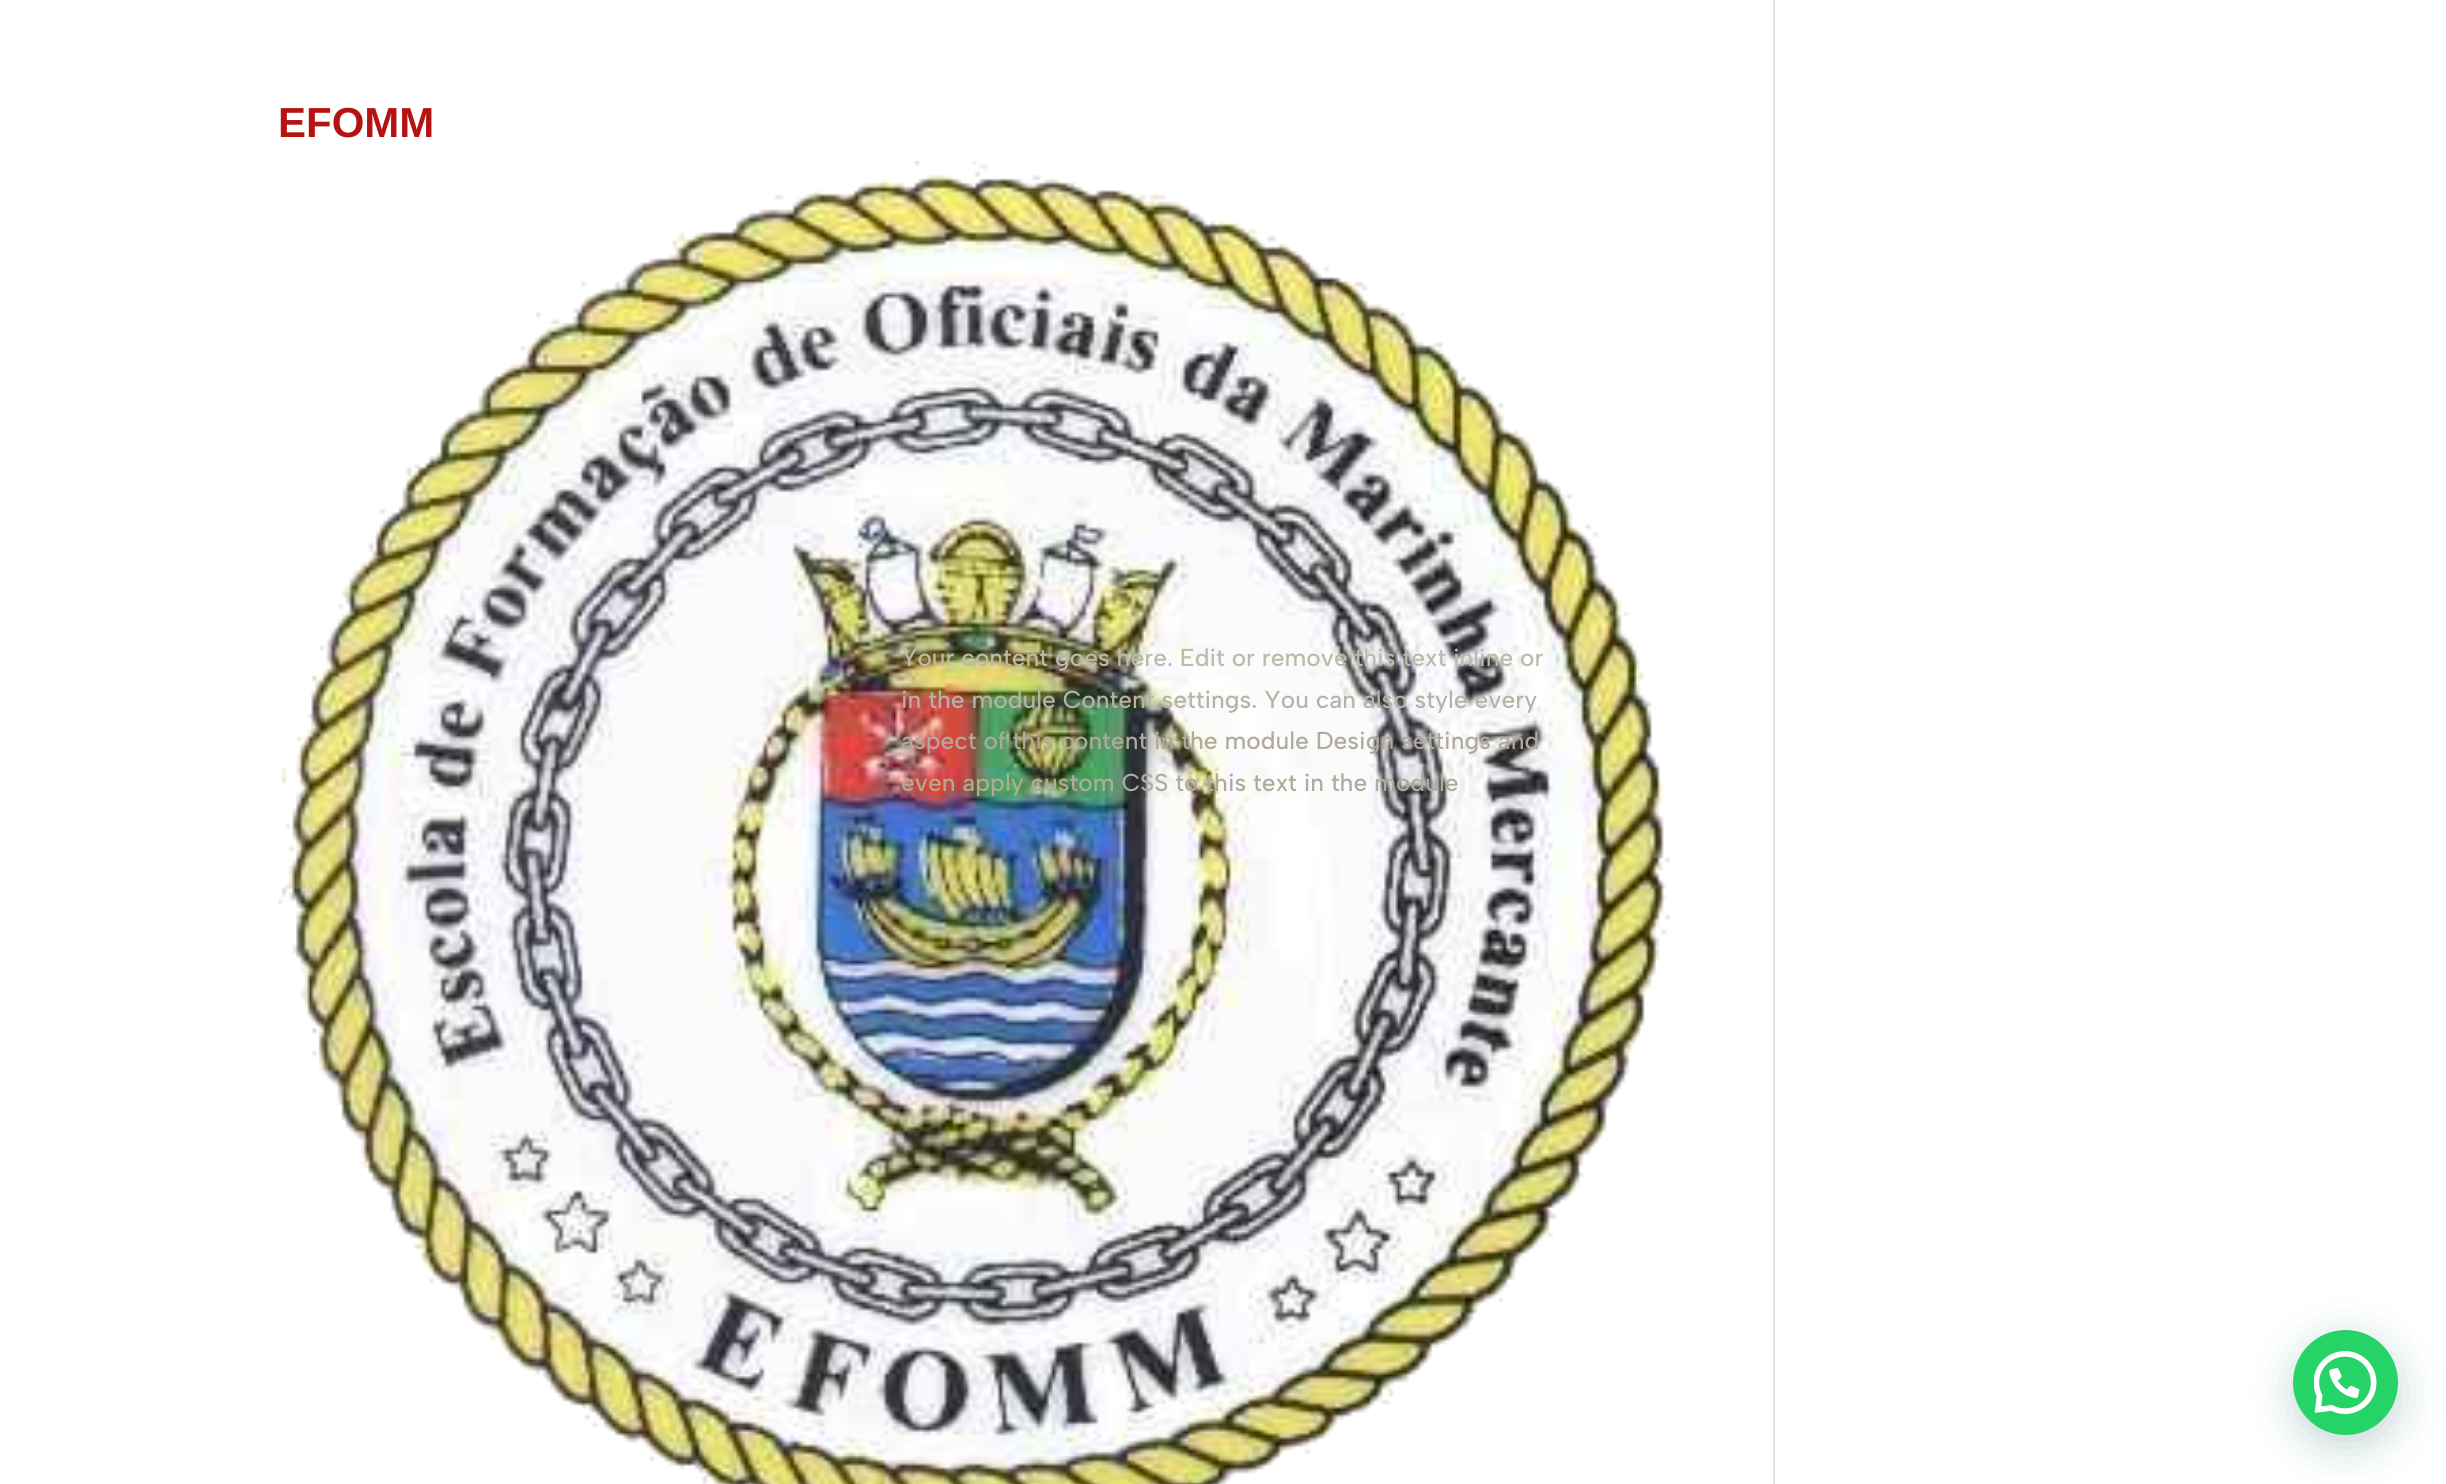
import math
import cairo

surface = cairo.ImageSurface(cairo.FORMAT_RGB24, 2446, 1484)
c = cairo.Context(surface)
options = cairo.FontOptions()
options.set_hint_metrics(cairo.HINT_METRICS_OFF)
options.set_hint_style(cairo.HINT_STYLE_NONE)
c.set_font_options(options)
c.set_miter_limit(4)
def C(code):
 c.set_source_rgb(*(v / 255 for v in bytes.fromhex(code[-6:])))
def F(family, size, italic, bold):
 c.select_font_face(family, cairo.FONT_SLANT_ITALIC if italic else cairo.FONT_SLANT_NORMAL, cairo.FONT_WEIGHT_BOLD if bold else cairo.FONT_WEIGHT_NORMAL)
 c.set_font_size(size)
def T(x, y, s):
 c.move_to(x, y)
 c.show_text(s)
def R(x, y, w, h):
 c.rectangle(x, y, w, h)
 c.fill()
def Q(x, y, w, h, r):
 c.new_sub_path()
 for i, (u, v) in enumerate([(x + w - r, y + h - r), (x + r, y + h - r), (x + r, y + r), (x + w - r, y + r)]):
  c.arc(u, v, r, i * math.pi / 2, (i + 1) * math.pi / 2)
 c.close_path()
def S(x, y, w, h, r, blur, alpha):
 c.push_group_with_content(cairo.CONTENT_ALPHA)
 c.set_operator(cairo.OPERATOR_SOURCE)
 for i in range(15, -16, -2):
  e = blur * i / 6
  if min(w, h) + 2 * e > 0:
   c.set_source_rgba(0, 0, 0, alpha * math.erfc((i - 1) / 8.5) / 2)
   Q(x - e, y - e, w + 2 * e, h + 2 * e, max(0, min(r + e + blur * .6, min(w, h) / 2 + e)))
   c.fill()
 c.mask(c.pop_group())
def I(path, x, y, w, h):
 c.save()
 c.set_source_surface(cairo.ImageSurface.create_from_png(path), x, y)
 c.rectangle(x, y, w, h)
 c.fill()
 c.restore()
C('ffffff')
c.paint()
F('Liberation Sans',42,0,1)
C('b51212')
T(278,137,'EFOMM')
I('1.png',278,161,1392,1323)
C('e2e2e2')
R(1773,0,2,1484)
F('Albert Sans Medium',24.5,0,0)
C('bcbaa9')
T(901,666,'Your content goes here. Edit or remove this text inline or')
C('b6b3a6')
T(901,708,'in the module Content settings. You can also style every')
C('b0aa9d')
T(901,749,'aspect of this content in the module Design settings and')
T(901,791,'even apply custom CSS to this text in the module')
C('075e54')
S(2294,1341,105,105,52.5,21,.24)
C('25d366')
c.arc(2345.5,1382.5,52.5,0,2 * math.pi)
c.fill()
I('2.png',2314,1351,63,63)
surface.write_to_png('o.png')
